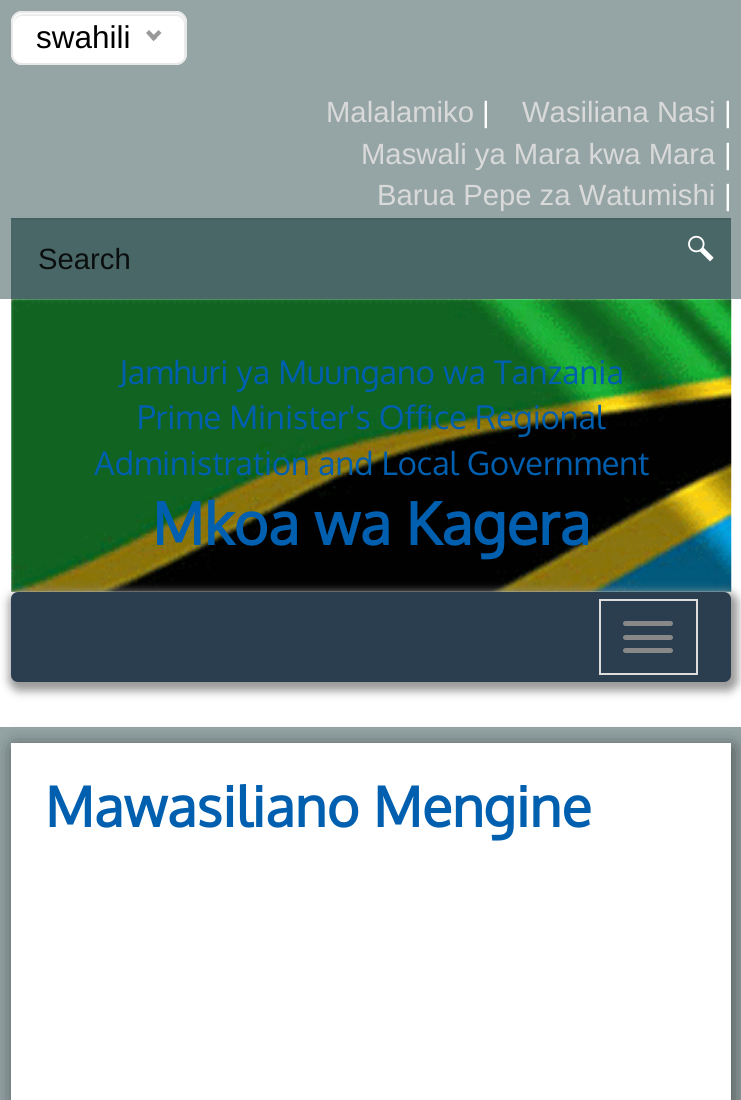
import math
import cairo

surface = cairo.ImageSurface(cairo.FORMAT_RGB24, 741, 1100)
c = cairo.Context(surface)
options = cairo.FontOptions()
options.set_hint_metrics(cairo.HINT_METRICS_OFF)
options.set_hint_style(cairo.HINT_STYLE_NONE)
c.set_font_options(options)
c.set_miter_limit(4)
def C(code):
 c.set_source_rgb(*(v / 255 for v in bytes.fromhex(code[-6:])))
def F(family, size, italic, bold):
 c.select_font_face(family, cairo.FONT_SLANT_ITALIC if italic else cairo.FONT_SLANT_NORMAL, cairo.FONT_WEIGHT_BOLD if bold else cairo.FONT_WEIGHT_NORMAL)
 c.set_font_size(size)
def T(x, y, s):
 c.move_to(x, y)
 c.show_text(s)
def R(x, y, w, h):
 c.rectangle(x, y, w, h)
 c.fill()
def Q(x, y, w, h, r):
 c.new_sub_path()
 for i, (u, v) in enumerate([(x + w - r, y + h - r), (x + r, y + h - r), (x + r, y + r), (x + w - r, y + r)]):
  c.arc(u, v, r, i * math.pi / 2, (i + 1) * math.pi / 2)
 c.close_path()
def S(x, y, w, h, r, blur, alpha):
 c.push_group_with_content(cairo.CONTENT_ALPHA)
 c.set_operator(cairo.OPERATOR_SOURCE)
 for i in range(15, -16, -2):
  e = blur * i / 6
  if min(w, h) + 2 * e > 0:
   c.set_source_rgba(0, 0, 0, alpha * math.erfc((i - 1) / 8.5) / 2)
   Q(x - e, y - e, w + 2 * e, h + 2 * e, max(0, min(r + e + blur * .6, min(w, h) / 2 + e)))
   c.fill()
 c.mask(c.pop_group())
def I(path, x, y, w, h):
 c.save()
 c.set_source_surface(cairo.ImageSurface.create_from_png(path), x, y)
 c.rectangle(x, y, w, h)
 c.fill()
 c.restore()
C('95a5a6')
c.paint()
C('ffffff')
Q(11,11,176,54,11)
c.fill()
C('ececec')
c.new_path()
c.move_to(22,16)
c.line_to(176,16)
c.curve_to(180,16,184,20,184,25)
c.line_to(184,56)
c.line_to(184,59)
c.curve_to(184,58,185,56,185,54)
c.line_to(185,23)
c.curve_to(185,18,181,14,176,14)
c.line_to(23,14)
c.curve_to(18,14,14,18,14,23)
c.line_to(14,25)
c.curve_to(14,20,18,16,22,16)
c.close_path()
c.fill()
Q(12,12,174,52,10)
C('e8e8e8')
c.stroke()
F('Liberation Sans',31.5,0,0)
C('000000')
T(36,48,'swahili')
C('999999')
c.new_path()
c.move_to(158.5,30)
c.line_to(161.5,33)
c.line_to(153.5,41)
c.line_to(150.5,38)
c.close_path()
c.fill()
c.new_path()
c.move_to(149,30)
c.line_to(157,38)
c.line_to(153.5,41)
c.line_to(146,33)
c.close_path()
c.fill()
F('Liberation Sans',29.25,0,0)
C('d9d9d9')
T(326,122,'Malalamiko')
C('ffffff')
T(482,122,'|')
C('d9d9d9')
T(522,122,'Wasiliana Nasi')
C('ffffff')
T(724,122,'|')
C('d9d9d9')
T(361,164,'Maswali ya Mara kwa Mara')
C('ffffff')
T(724,164,'|')
C('d9d9d9')
T(377,205,'Barua Pepe za Watumishi')
C('ffffff')
T(724,205,'|')
C('4a6767')
R(11,220,720,79)
C('445f5f')
R(11,218,720,2)
C('0a0e0e')
T(38,269,'Search')
I('1.png',688,235,26,27)
C('ffffff')
R(0,299,741,428)
I('2.png',11,299,721,293)
F('Oxygen',32.5,0,0)
C('005faf')
T(119,384,'Jamhuri ya Muungano wa Tanzania')
T(137,429,'Prime Minister\'s Office Regional')
T(94,475,'Administration and Local Government')
F('Oxygen',58.5,0,1)
T(152,545,'Mkoa wa Kagera')
C('999999')
S(9,592,729,99,11,4.5,1)
C('2b3e50')
Q(11,592,720,90,7)
c.fill()
c.rectangle(600,600,97,74)
C('dddddd')
c.stroke()
C('888888')
Q(623,621,50,5,2.5)
c.fill()
Q(623,635,50,5,2.5)
c.fill()
Q(623,648,50,5,2.5)
c.fill()
C('323232')
S(14,747,720,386,0,11,.75)
C('ffffff')
R(11,743,720,357)
F('Oxygen',55.25,0,1)
C('005faf')
T(45,827,'Mawasiliano Mengine')
surface.write_to_png('o.png')
